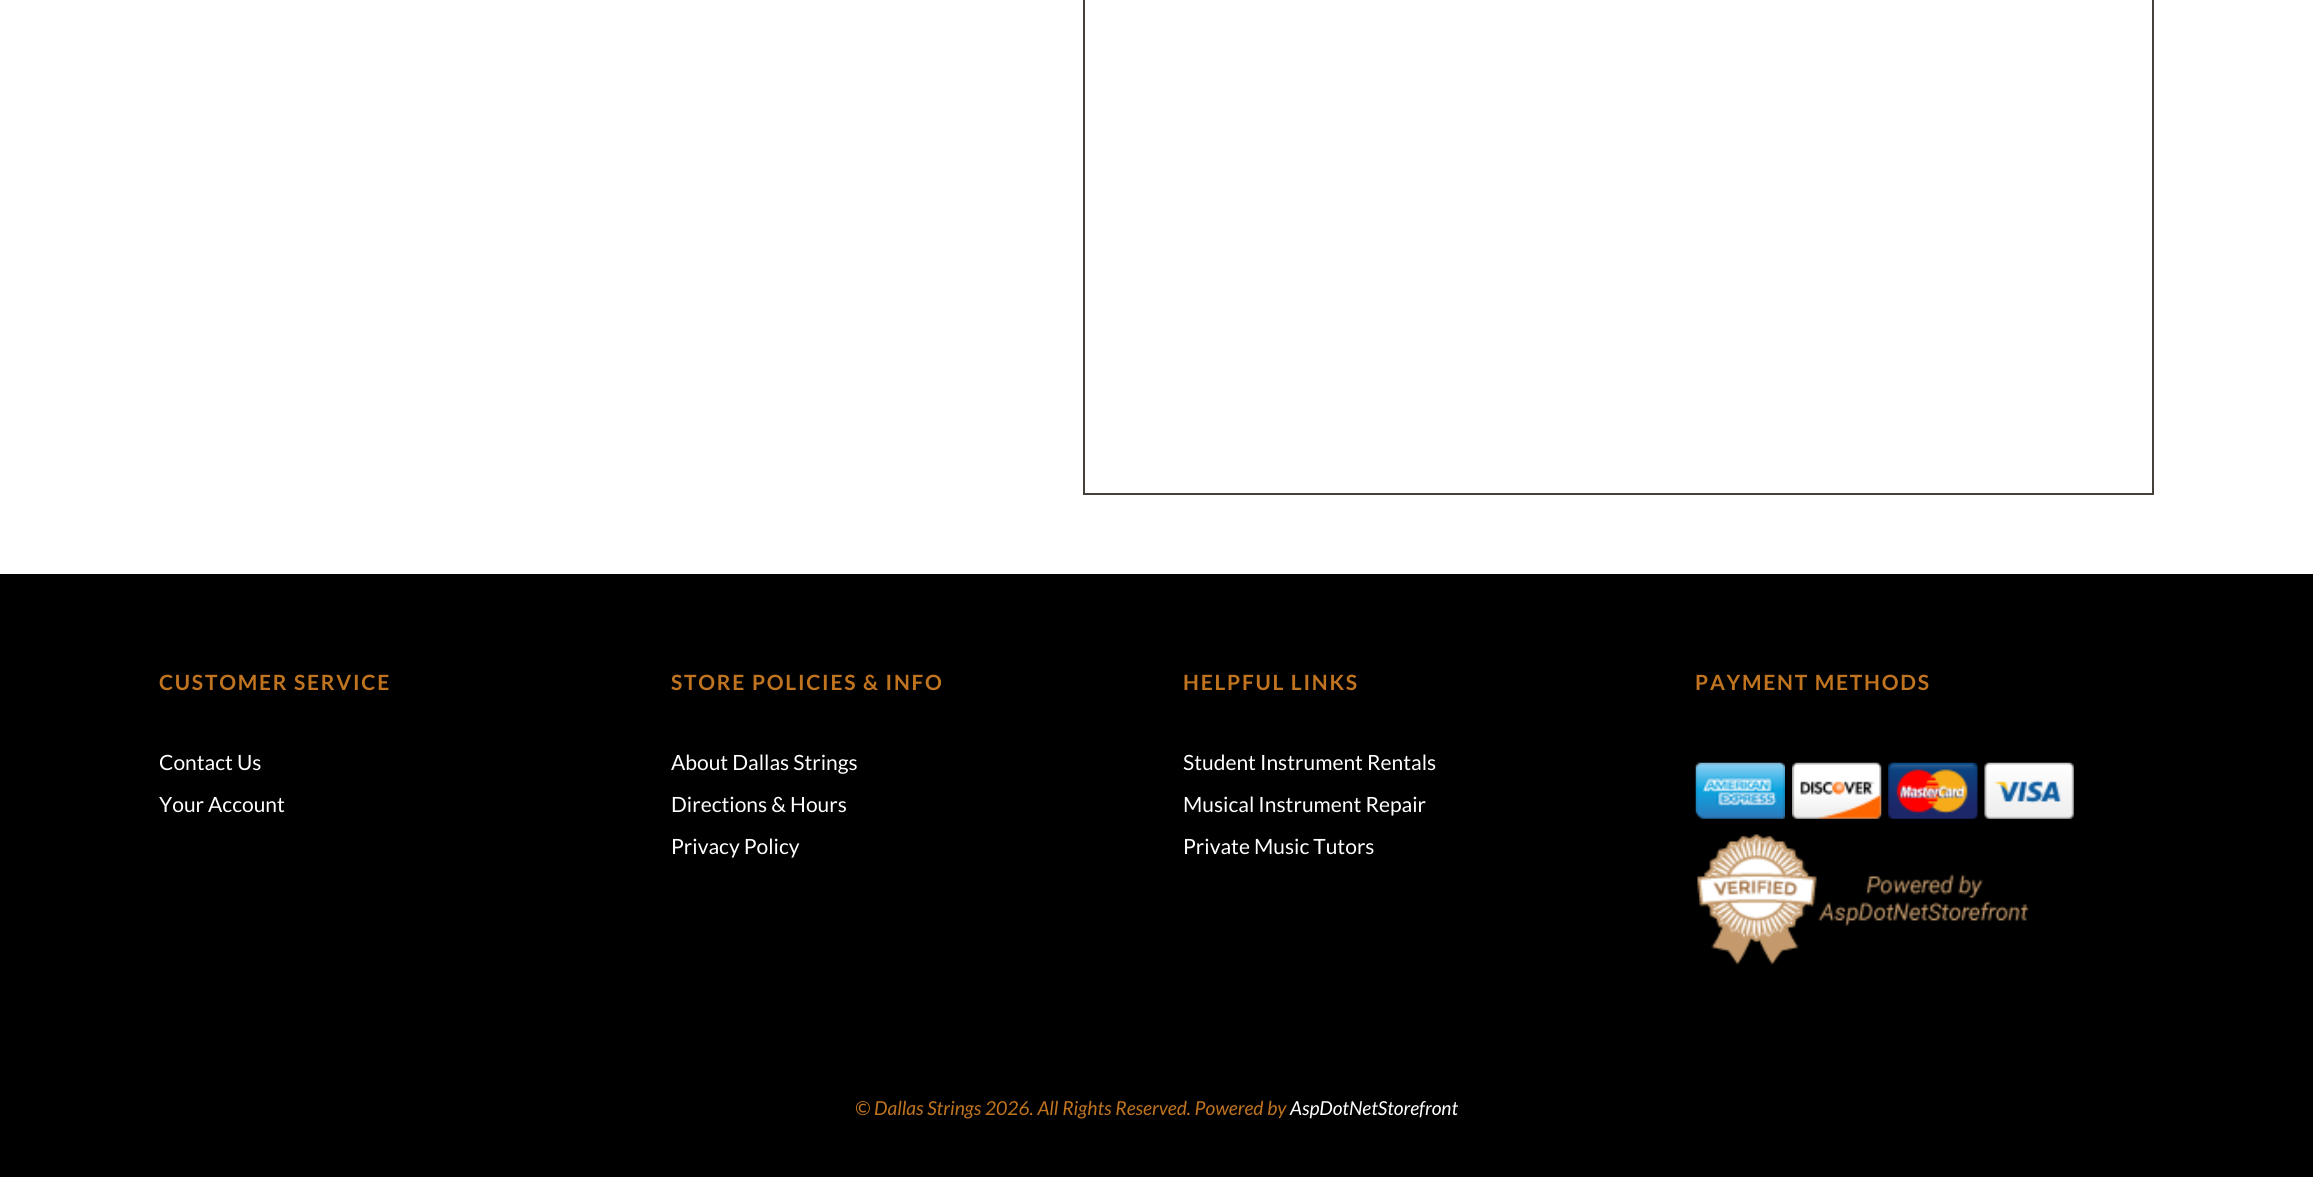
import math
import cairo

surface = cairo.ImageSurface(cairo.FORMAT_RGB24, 2313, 1177)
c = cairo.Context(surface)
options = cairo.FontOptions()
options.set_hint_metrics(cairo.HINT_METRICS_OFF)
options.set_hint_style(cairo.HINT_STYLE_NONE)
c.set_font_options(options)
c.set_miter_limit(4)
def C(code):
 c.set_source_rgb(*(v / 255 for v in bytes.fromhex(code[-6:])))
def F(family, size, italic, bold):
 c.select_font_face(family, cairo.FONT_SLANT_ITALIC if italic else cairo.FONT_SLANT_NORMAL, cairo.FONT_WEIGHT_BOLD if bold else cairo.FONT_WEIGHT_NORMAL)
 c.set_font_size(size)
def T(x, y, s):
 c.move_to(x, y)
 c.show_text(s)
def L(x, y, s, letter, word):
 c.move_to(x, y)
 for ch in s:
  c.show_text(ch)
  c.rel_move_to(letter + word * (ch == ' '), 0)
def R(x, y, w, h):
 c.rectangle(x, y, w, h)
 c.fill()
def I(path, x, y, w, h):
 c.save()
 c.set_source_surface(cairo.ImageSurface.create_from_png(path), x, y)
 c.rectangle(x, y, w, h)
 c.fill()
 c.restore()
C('ffffff')
c.paint()
c.rectangle(1084,-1,1069,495)
C('46403a')
c.stroke()
C('000000')
R(0,574,2313,603)
F('Lato',21,0,1)
C('c0741f')
L(159,690,'CUSTOMER SERVICE',1.75,0)
F('Lato',21,0,0)
C('ffffff')
T(159,770,'Contact Us')
T(159,812,'Your Account')
F('Lato',21,0,1)
C('c0741f')
L(671,690,'STORE POLICIES & INFO',1.75,0)
F('Lato',21,0,0)
C('ffffff')
T(671,770,'About Dallas Strings')
T(671,812,'Directions & Hours')
T(671,854,'Privacy Policy')
F('Lato',21,0,1)
C('c0741f')
L(1183,690,'HELPFUL LINKS',1.75,0)
F('Lato',21,0,0)
C('ffffff')
T(1183,770,'Student Instrument Rentals')
T(1183,812,'Musical Instrument Repair')
T(1183,854,'Private Music Tutors')
F('Lato',21,0,1)
C('c0741f')
L(1695,690,'PAYMENT METHODS',1.75,0)
I('1.png',1695,762,90,57)
I('2.png',1792,762,90,57)
I('3.png',1888,762,90,57)
I('4.png',1984,762,90,57)
I('5.png',1697,834,332,131)
F('Lato',19.25,1,0)
T(855,1115,'© Dallas Strings 2026. All Rights Reserved. Powered by')
C('ffffff')
T(1290,1115,'AspDotNetStorefront')
surface.write_to_png('o.png')
